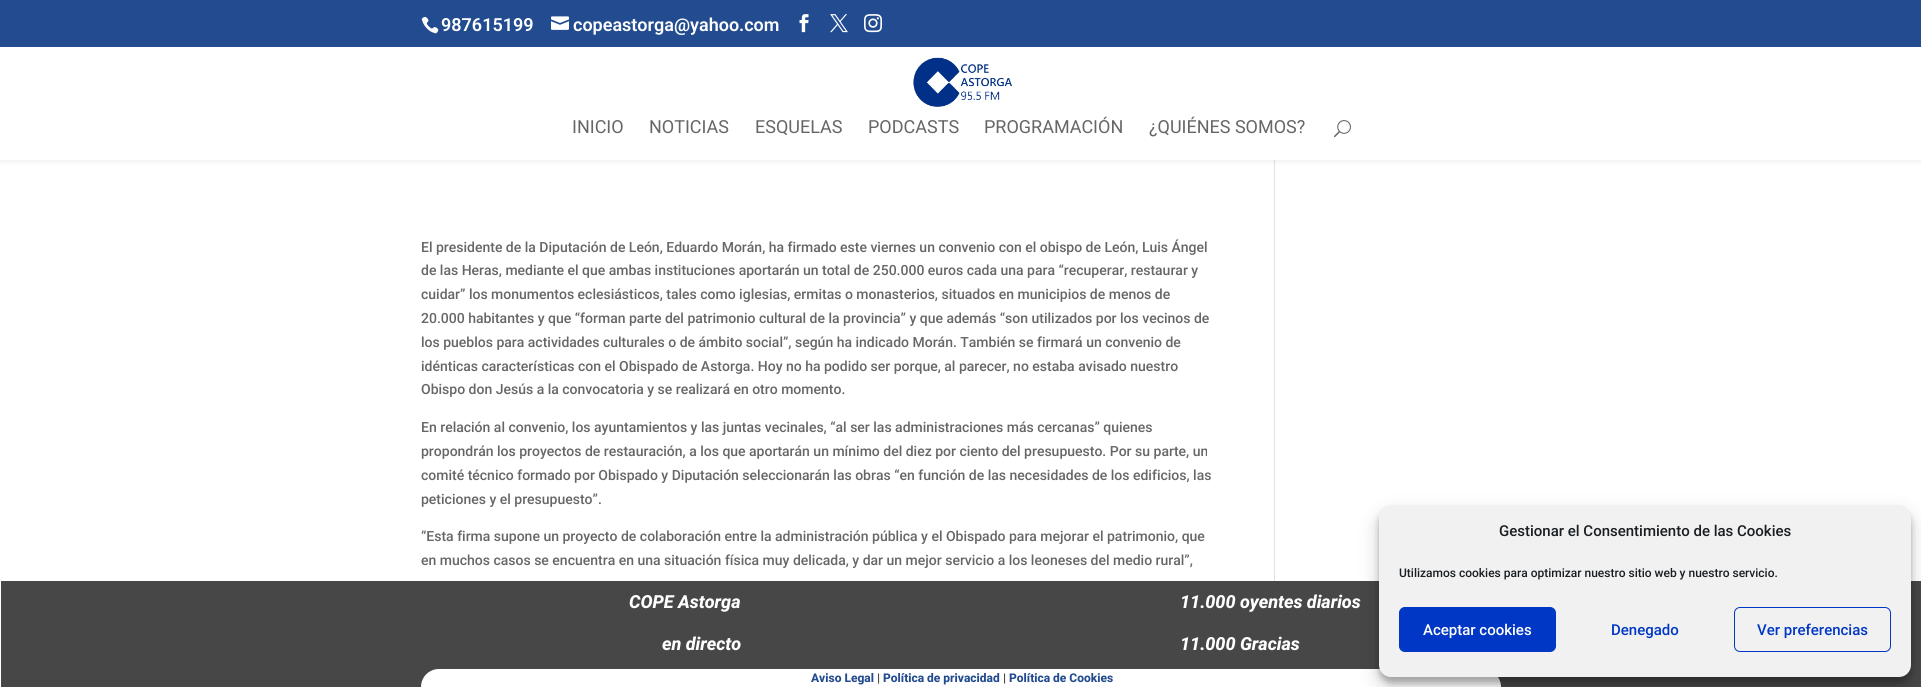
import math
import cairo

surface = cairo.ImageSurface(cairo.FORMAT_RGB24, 1921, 687)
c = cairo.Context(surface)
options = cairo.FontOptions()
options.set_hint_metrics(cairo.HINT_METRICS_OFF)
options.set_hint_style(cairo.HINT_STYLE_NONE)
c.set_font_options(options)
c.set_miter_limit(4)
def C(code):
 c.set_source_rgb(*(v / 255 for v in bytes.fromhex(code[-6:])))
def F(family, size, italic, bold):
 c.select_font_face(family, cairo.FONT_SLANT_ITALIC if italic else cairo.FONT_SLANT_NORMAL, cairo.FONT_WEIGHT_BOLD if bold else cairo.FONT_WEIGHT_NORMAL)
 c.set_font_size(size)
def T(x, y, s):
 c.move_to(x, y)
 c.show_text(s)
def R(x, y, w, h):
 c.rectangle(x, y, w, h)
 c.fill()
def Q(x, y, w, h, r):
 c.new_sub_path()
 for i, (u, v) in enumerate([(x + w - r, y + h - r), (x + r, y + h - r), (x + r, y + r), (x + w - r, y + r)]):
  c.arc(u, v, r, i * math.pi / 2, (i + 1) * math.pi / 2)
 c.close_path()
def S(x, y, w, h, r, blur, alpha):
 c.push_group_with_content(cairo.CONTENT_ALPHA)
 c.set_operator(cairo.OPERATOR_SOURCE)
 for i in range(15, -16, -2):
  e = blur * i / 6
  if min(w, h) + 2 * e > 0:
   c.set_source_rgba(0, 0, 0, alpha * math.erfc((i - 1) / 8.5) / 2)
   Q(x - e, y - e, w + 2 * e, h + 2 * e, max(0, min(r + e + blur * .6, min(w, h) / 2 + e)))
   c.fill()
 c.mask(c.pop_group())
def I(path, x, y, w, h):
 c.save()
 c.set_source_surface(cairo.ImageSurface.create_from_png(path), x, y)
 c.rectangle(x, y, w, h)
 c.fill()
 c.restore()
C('ffffff')
c.paint()
C('e2e2e2')
R(1274,160,1,421)
C('000000')
S(0,47,1921,113,0,3.5,.1)
C('234c90')
R(0,0,1921,47)
I('1.png',421,16,18,18)
F('Roboto SemiBold',18,0,0)
C('ffffff')
T(441,31,'987615199')
I('2.png',551,16,18,14)
T(573,31,'copeastorga@yahoo.com')
I('3.png',799,14,10,19)
I('4.png',830,14,18,19)
I('5.png',864,14,18,19)
R(0,47,1921,113)
I('6.png',913,57,100,50)
F('Roboto',18,0,0)
C('666666')
T(572,133,'INICIO')
T(649,133,'NOTICIAS')
T(755,133,'ESQUELAS')
T(868,133,'PODCASTS')
T(984,133,'PROGRAMACIÓN')
T(1149,133,'¿QUIÉNES SOMOS?')
I('7.png',1334,120,17,18)
F('Roboto Medium',14,0,0)
T(421,252,'El presidente de la Diputación de León, Eduardo Morán, ha firmado este viernes un convenio con el obispo de León, Luis Ángel')
T(421,275,'de las Heras, mediante el que ambas instituciones aportarán un total de 250.000 euros cada una para “recuperar, restaurar y')
T(421,299,'cuidar” los monumentos eclesiásticos, tales como iglesias, ermitas o monasterios, situados en municipios de menos de')
T(421,323,'20.000 habitantes y que “forman parte del patrimonio cultural de la provincia” y que además “son utilizados por los vecinos de')
T(421,347,'los pueblos para actividades culturales o de ámbito social”, según ha indicado Morán. También se firmará un convenio de')
T(421,371,'idénticas características con el Obispado de Astorga. Hoy no ha podido ser porque, al parecer, no estaba avisado nuestro')
T(421,394,'Obispo don Jesús a la convocatoria y se realizará en otro momento.')
T(421,432,'En relación al convenio, los ayuntamientos y las juntas vecinales, “al ser las administraciones más cercanas” quienes')
T(421,456,'propondrán los proyectos de restauración, a los que aportarán un mínimo del diez por ciento del presupuesto. Por su parte, un')
T(421,480,'comité técnico formado por Obispado y Diputación seleccionarán las obras “en función de las necesidades de los edificios, las')
T(421,504,'peticiones y el presupuesto”.')
T(421,541,'“Esta firma supone un proyecto de colaboración entre la administración pública y el Obispado para mejorar el patrimonio, que')
T(421,565,'en muchos casos se encuentra en una situación física muy delicada, y dar un mejor servicio a los leoneses del medio rural”,')
C('474747')
R(1,581,1920,106)
F('Roboto ExtraBold',18,1,0)
C('ffffff')
T(629,608,'COPE Astorga')
T(662,650,'en directo')
T(1180,608,'11.000 oyentes diarios')
T(1180,650,'11.000 Gracias')
c.new_path()
c.move_to(439,669)
c.line_to(1483,669)
c.curve_to(1493,669,1501,677,1501,687)
c.line_to(421,687)
c.curve_to(421,677,429,669,439,669)
c.close_path()
c.fill()
F('Roboto ExtraBold',12,0,0)
C('234c90')
T(811,682,'Aviso Legal')
C('474747')
T(877,682,'|')
C('234c90')
T(883,682,'Política de privacidad')
C('474747')
T(1003,682,'|')
C('234c90')
T(1009,682,'Política de Cookies')
C('000000')
S(1379,511,532,172,12,3,.23)
S(1379,515,532,172,12,10,.19)
C('f1f1f1')
Q(1379,505,532,172,12)
c.fill()
F('Roboto Medium',15,0,0)
C('191e23')
T(1499,536,'Gestionar el Consentimiento de las Cookies')
F('Roboto Medium',12,0,0)
T(1399,577,'Utilizamos cookies para optimizar nuestro sitio web y nuestro servicio.')
C('0037c4')
Q(1399.5,607.5,156,44,5.5)
c.fill_preserve()
c.set_line_width(1)
c.stroke()
F('Roboto Medium',15,0,0)
C('ffffff')
T(1423,635,'Aceptar cookies')
C('0037c4')
T(1611,635,'Denegado')
Q(1734.5,607.5,156,44,5.5)
c.stroke()
T(1757,635,'Ver preferencias')
surface.write_to_png('o.png')
